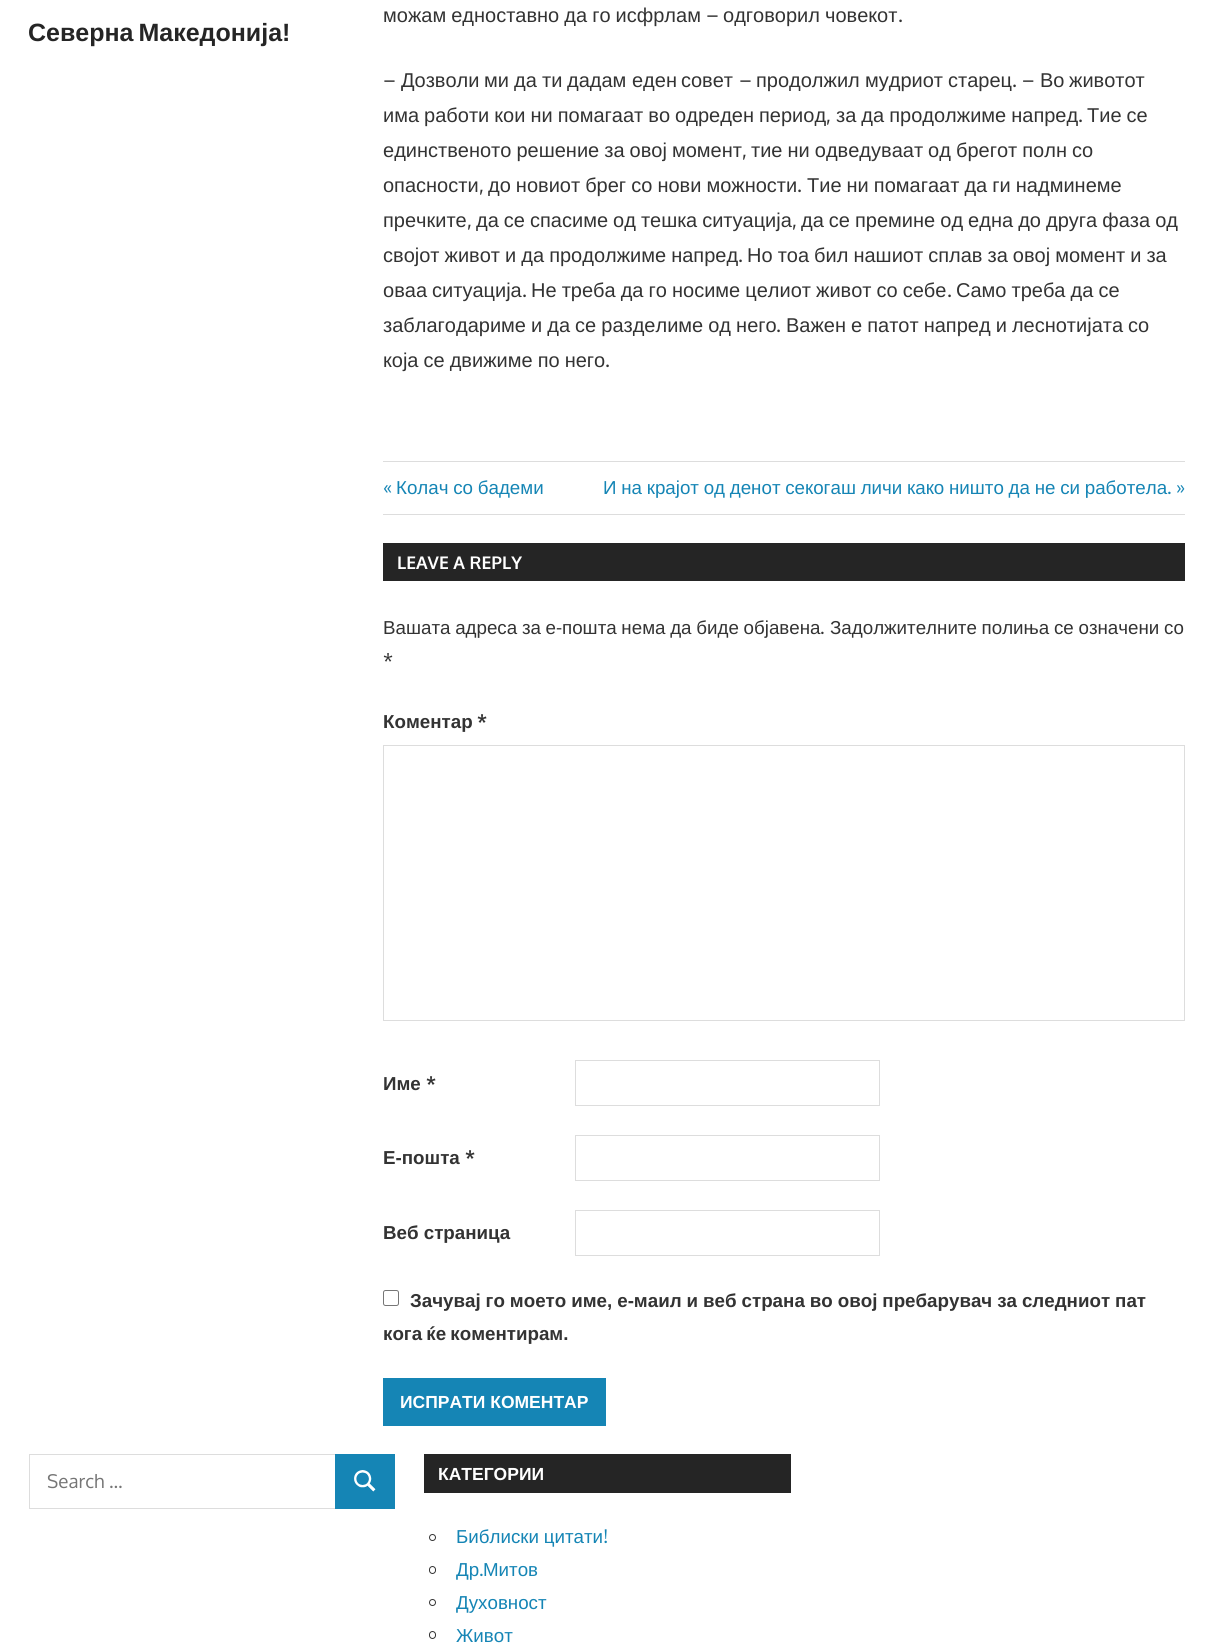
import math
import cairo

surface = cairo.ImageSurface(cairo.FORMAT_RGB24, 1215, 1649)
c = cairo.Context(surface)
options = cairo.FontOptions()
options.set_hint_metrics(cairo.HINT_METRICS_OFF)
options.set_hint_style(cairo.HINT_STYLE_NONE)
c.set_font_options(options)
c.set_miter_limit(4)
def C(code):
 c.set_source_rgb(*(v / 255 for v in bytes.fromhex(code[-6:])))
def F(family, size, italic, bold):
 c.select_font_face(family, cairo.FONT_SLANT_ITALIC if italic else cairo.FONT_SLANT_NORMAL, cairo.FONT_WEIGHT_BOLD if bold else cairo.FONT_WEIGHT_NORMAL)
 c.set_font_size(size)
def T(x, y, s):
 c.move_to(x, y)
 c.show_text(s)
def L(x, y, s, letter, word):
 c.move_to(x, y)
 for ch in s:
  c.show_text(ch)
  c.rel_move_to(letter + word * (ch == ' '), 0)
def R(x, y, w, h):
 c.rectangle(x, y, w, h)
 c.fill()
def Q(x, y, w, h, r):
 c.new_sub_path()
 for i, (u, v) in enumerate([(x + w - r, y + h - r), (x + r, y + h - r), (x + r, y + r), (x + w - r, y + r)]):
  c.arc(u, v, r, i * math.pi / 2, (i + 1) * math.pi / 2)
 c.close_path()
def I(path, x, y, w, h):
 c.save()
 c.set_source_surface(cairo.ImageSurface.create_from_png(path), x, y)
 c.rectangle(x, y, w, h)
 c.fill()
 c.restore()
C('ffffff')
c.paint()
F('Liberation Sans',25,0,1)
C('252525')
L(28,41,'Северна Македонија!',0,-2)
F('Liberation Sans',20,0,0)
C('333333')
L(383,22,'можам едноставно да го исфрлам',0,-.5)
F('Oxygen',20,0,0)
T(706,22,'–')
F('Liberation Sans',20,0,0)
L(723,22,'одговорил човекот',0,-.5)
F('Oxygen',20,0,0)
T(898,22,'.')
T(383,87,'–')
F('Liberation Sans',20,0,0)
T(401,87,'Дозволи')
T(484,87,'ми')
T(514,87,'да')
T(542,87,'ти')
T(567,87,'дадам')
T(632,87,'еден')
T(681,87,'совет')
F('Oxygen',20,0,0)
T(739,87,'–')
F('Liberation Sans',20,0,0)
T(756,87,'продолжил')
T(865,87,'мудриот')
T(948,87,'старец')
F('Oxygen',20,0,0)
T(1012,87,'. –')
F('Liberation Sans',20,0,0)
T(1040,87,'Во')
T(1069,87,'животот')
L(383,122,'има работи кои ни помагаат во одреден период',0,-.5)
F('Oxygen',20,0,0)
T(826,122,',')
F('Liberation Sans',20,0,0)
L(836,122,'за да продолжиме напред',0,-.5)
F('Oxygen',20,0,0)
T(1078,122,'.')
F('Liberation Sans',20,0,0)
L(1087,122,'Тие се',0,-.5)
L(383,157,'единственото решение за овој момент',0,-.5)
F('Oxygen',20,0,0)
T(742,157,',')
F('Liberation Sans',20,0,0)
L(751,157,'тие ни одведуваат од брегот полн со',0,-.5)
T(383,192,'опасности')
F('Oxygen',20,0,0)
T(479,192,',')
F('Liberation Sans',20,0,0)
L(488,192,'до новиот брег со нови можности',0,-.5)
F('Oxygen',20,0,0)
T(797,192,'.')
F('Liberation Sans',20,0,0)
L(807,192,'Тие ни помагаат да ги надминеме',0,-.5)
T(383,227,'пречките')
F('Oxygen',20,0,0)
T(467,227,',')
F('Liberation Sans',20,0,0)
L(476,227,'да се спасиме од тешка ситуација',0,-.5)
F('Oxygen',20,0,0)
T(792,227,',')
F('Liberation Sans',20,0,0)
L(801,227,'да се премине од една до друга фаза од',0,-.5)
L(383,262,'својот живот и да продолжиме напред',0,-.5)
F('Oxygen',20,0,0)
T(738,262,'.')
F('Liberation Sans',20,0,0)
L(747,262,'Но тоа бил нашиот сплав за овој момент и за',0,-.5)
L(383,297,'оваа ситуација',0,-.5)
F('Oxygen',20,0,0)
T(522,297,'.')
F('Liberation Sans',20,0,0)
L(531,297,'Не треба да го носиме целиот живот со себе',0,-.5)
F('Oxygen',20,0,0)
T(947,297,'.')
F('Liberation Sans',20,0,0)
L(956,297,'Само треба да се',0,-.5)
L(383,332,'заблагодариме и да се разделиме од него',0,-.5)
F('Oxygen',20,0,0)
T(776,332,'.')
F('Liberation Sans',20,0,0)
L(786,332,'Важен е патот напред и леснотијата со',0,-.5)
L(383,367,'која се движиме по него',0,-.5)
F('Oxygen',20,0,0)
T(605,367,'.')
C('dddddd')
R(383,461,802,1)
R(383,514,802,1)
F('Oxygen',18.75,0,0)
C('1585b5')
T(383,494,'«')
F('Liberation Sans',18.75,0,0)
L(396,494,'Колач со бадеми',0,-.5)
L(603,494,'И на крајот од денот секогаш личи како ништо да не си работела',0,-.5)
F('Oxygen',18.75,0,0)
T(1167,494,'.')
T(1176,494,'»')
C('252525')
R(383,543,802,38)
F('Oxygen',17.5,0,1)
C('ffffff')
T(397,569,'LEAVE A REPLY')
F('Liberation Sans',18.75,0,0)
C('333333')
L(383,634,'Вашата адреса за е',0,-.5)
F('Oxygen',18.75,0,0)
T(556,634,'-')
F('Liberation Sans',18.75,0,0)
L(562,634,'пошта нема да биде објавена',0,-.5)
L(830,634,'Задолжителните полиња се означени со',0,-.5)
F('Oxygen',18.75,0,0)
T(820,634,'.')
T(383,667,'*')
F('Liberation Sans',18.75,0,1)
T(383,728,'Коментар')
F('Oxygen',18.75,0,1)
T(477,728,'*')
c.rectangle(383.5,745.5,801,275)
C('dddddd')
c.set_line_width(1)
c.stroke()
F('Liberation Sans',18.75,0,1)
C('333333')
T(383,1090,'Име')
F('Oxygen',18.75,0,1)
T(426,1090,'*')
c.rectangle(575.5,1060.5,304,45)
C('dddddd')
c.stroke()
F('Liberation Sans',18.75,0,1)
C('333333')
T(383,1164,'Е-пошта')
F('Oxygen',18.75,0,1)
T(465,1164,'*')
c.rectangle(575.5,1135.5,304,45)
C('dddddd')
c.stroke()
F('Liberation Sans',18.75,0,1)
C('333333')
T(383,1239,'Веб страница')
c.rectangle(575.5,1210.5,304,45)
C('dddddd')
c.stroke()
Q(383.5,1290.5,15,15,2)
C('767676')
c.stroke()
C('333333')
L(410,1307,'Зачувај го моето име, е-маил и веб страна во овој пребарувач за следниот пат',0,-.25)
L(383,1340,'кога ќе коментирам.',0,-1)
C('1585b5')
R(383,1378,223,48)
F('Liberation Sans',17.5,0,1)
C('ffffff')
T(400,1408,'ИСПРАТИ КОМЕНТАР')
c.rectangle(29.5,1454.5,306,54)
C('dddddd')
c.stroke()
F('Oxygen',18.75,0,0)
C('757575')
T(47,1488,'Search …')
C('1585b5')
R(335,1454,60,55)
I('1.png',354,1470,22,22)
C('252525')
R(424,1454,367,39)
F('Liberation Sans',17.5,0,1)
C('ffffff')
T(438,1480,'КАТЕГОРИИ')
c.new_path()
c.arc(432.5,1537.5,3,0,2 * math.pi)
C('333333')
c.stroke()
F('Liberation Sans',18.75,0,0)
C('1585b5')
L(456,1543,'Библиски цитати',0,-.5)
F('Oxygen',18.75,0,0)
T(603,1543,'!')
Q(429.5,1566.5,6,7,3)
C('333333')
c.stroke()
F('Liberation Sans',18.75,0,0)
C('1585b5')
T(456,1576,'Др')
T(483,1576,'Митов')
F('Oxygen',18.75,0,0)
T(479,1576,'.')
c.new_path()
c.arc(432.5,1602.5,3,0,2 * math.pi)
C('333333')
c.stroke()
F('Liberation Sans',18.75,0,0)
C('1585b5')
T(456,1609,'Духовност')
Q(429.5,1631.5,6,7,3)
C('333333')
c.stroke()
C('1585b5')
T(456,1642,'Живот')
surface.write_to_png('o.png')
